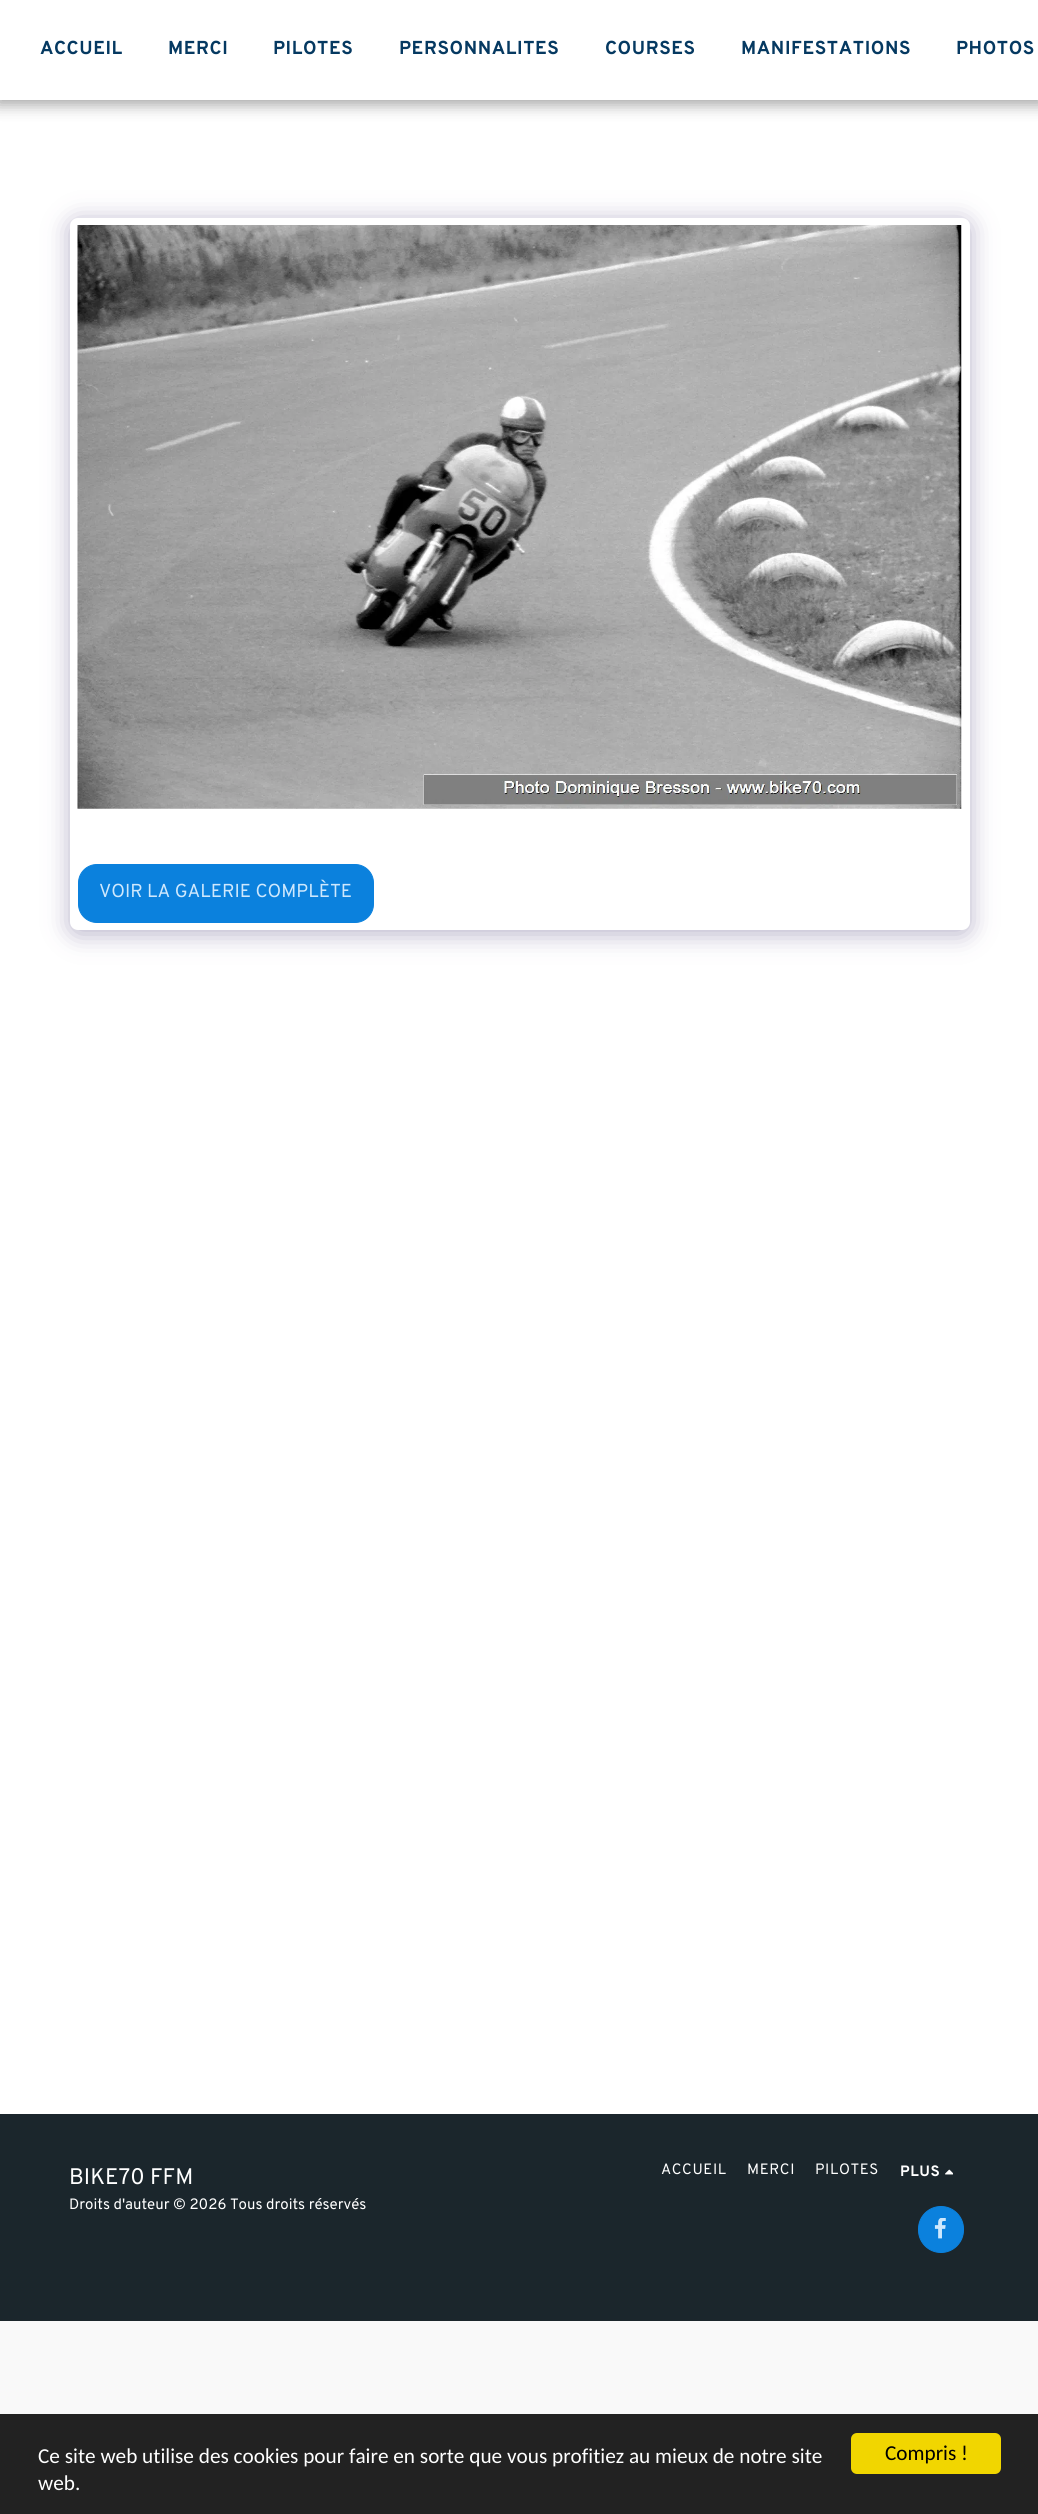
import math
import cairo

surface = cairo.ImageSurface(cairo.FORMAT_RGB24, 1038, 2514)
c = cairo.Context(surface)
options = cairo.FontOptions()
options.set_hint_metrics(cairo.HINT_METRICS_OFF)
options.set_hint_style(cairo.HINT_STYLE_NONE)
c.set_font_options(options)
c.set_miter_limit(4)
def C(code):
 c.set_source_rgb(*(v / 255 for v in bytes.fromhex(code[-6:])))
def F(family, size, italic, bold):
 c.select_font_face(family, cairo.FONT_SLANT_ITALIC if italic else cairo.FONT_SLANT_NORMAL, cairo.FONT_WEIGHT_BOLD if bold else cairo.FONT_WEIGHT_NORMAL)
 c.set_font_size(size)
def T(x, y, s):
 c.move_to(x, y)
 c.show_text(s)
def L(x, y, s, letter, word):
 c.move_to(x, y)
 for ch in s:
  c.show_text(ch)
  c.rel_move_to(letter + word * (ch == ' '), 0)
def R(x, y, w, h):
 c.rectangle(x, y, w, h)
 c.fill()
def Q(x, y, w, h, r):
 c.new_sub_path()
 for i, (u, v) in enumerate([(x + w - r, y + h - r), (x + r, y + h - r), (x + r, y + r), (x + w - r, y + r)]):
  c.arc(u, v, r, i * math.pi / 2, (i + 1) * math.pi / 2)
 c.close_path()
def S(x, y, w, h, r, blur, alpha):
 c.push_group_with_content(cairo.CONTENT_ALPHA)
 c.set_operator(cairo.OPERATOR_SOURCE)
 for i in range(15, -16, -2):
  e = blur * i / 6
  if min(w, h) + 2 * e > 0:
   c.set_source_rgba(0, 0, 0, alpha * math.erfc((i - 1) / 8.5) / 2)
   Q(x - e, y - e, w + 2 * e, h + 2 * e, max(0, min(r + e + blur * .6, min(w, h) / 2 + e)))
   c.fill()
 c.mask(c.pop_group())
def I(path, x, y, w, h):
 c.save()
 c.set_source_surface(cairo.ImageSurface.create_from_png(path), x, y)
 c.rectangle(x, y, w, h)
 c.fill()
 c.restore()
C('f9f9f9')
c.paint()
C('ffffff')
R(0,100,1038,2014)
C('000000')
S(-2,0,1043,105,0,7.5,.35)
C('ffffff')
R(0,0,1038,100)
F('Overpass',18.75,0,1)
C('053961')
L(40,54,'ACCUEIL',.6,0)
L(168,54,'MERCI',.6,0)
L(273,54,'PILOTES',.6,0)
L(399,54,'PERSONNALITES',.6,0)
L(605,54,'COURSES',.6,0)
L(741,54,'MANIFESTATIONS',.6,0)
L(956,54,'PHOTOS',.6,0)
C('4d3f7a')
S(70,221,900,713,8,12.5,.4)
C('ffffff')
Q(70,218,900,712,8)
c.fill()
I('1.png',77,225,885,584)
C('0b81dd')
Q(78.5,864.5,295,58,18.5)
c.fill_preserve()
c.set_line_width(1)
c.stroke()
F('Overpass',18.75,0,0)
C('cee8fd')
T(99,897,'VOIR LA GALERIE COMPLÈTE')
C('1b262c')
R(0,2114,1038,207)
F('Overpass',22.5,0,0)
C('ffffff')
T(69,2184,'BIKE70 FFM')
F('Overpass',15,0,0)
T(69,2209,'Droits d\'auteur © 2026 Tous droits réservés')
L(661,2174,'ACCUEIL',.6,0)
L(747,2174,'MERCI',.6,0)
L(815,2174,'PILOTES',.6,0)
F('Overpass',15,0,1)
L(900,2176,'PLUS',.6,0)
I('2.png',945,2169,8,6)
C('0b81dd')
Q(918.5,2206.5,45,46,22.5)
c.fill_preserve()
c.stroke()
I('3.png',934,2218,12,21)
C('222222')
R(0,2414,1038,100)
F('Carlito',21.25,0,0)
C('ffffff')
T(38,2463,'Ce site web utilise des cookies pour faire en sorte que vous profitiez au mieux de notre site')
T(38,2490,'web.')
C('f1d600')
Q(851,2433,150,41,6)
c.fill()
C('000000')
T(885,2460,'Compris !')
surface.write_to_png('o.png')
